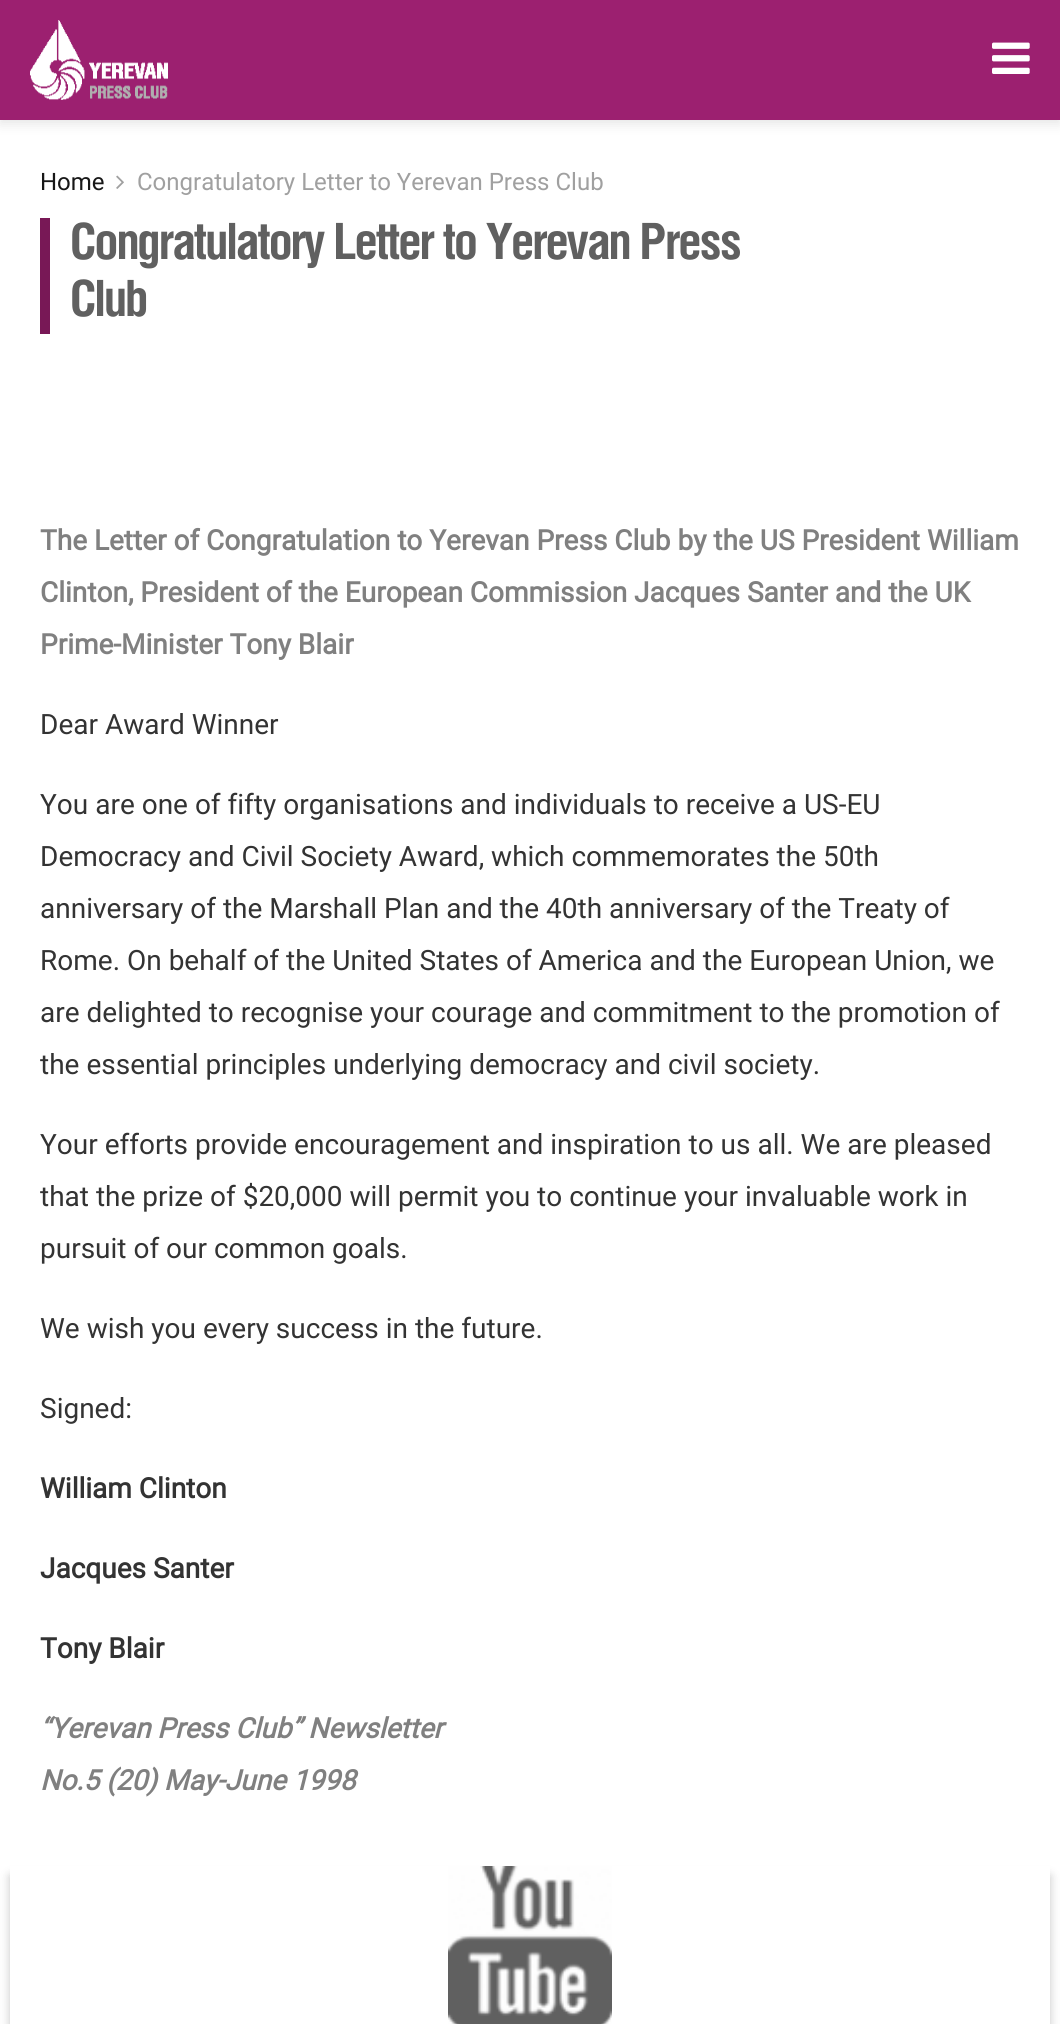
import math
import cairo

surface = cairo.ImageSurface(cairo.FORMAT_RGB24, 1060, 2024)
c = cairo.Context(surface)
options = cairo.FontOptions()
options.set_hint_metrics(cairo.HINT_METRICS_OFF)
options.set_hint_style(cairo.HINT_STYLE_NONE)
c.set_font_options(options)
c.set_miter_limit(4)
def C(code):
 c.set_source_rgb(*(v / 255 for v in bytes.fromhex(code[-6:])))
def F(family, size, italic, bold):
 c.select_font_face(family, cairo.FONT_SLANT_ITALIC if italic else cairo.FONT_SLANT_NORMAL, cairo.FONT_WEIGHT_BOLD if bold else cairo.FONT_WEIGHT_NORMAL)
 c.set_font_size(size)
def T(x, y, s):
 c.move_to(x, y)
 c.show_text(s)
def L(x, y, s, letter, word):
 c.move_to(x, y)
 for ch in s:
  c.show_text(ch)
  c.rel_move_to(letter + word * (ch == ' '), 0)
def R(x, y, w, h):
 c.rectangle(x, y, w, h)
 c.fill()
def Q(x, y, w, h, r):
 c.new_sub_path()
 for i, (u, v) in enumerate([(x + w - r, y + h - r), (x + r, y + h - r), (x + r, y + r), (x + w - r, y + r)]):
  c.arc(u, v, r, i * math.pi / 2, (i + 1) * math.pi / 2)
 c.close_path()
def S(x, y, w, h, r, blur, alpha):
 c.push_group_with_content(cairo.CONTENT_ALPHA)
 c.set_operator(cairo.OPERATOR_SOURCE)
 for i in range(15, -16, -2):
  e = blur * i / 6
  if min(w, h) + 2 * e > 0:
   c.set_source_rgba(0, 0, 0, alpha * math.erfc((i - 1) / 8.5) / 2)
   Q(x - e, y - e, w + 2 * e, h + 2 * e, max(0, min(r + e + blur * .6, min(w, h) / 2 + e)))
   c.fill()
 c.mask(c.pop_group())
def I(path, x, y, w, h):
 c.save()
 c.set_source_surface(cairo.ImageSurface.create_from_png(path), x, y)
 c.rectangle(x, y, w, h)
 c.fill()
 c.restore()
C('ffffff')
c.paint()
C('000000')
S(0,4,1060,120,0,6,.1)
C('9c2070')
R(0,0,1060,120)
I('1.png',30,20,138,80)
I('2.png',992,42,38,32)
F('Roboto',24,0,0)
C('171717')
T(40,190,'Home')
I('3.png',116,175,8,14)
C('a0a0a0')
T(137,190,'Congratulatory Letter to Yerevan Press Club')
C('781856')
R(40,218,10,116)
F('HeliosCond',50,0,1)
C('606060')
L(70,259,'Congratulatory Letter to Yerevan Press',-2,0)
L(70,316,'Club',-2,0)
F('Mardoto',28,0,1)
C('808080')
T(40,550,'The Letter of Congratulation to Yerevan Press Club by the US President William')
T(40,602,'Clinton, President of the European Commission Jacques Santer and the UK')
T(40,654,'Prime-Minister Tony Blair')
F('Mardoto',28,0,0)
C('333333')
T(40,734,'Dear Award Winner')
T(40,814,'You are one of fifty organisations and individuals to receive a US-EU')
T(40,866,'Democracy and Civil Society Award, which commemorates the 50th')
T(40,918,'anniversary of the Marshall Plan and the 40th anniversary of the Treaty of')
T(40,970,'Rome. On behalf of the United States of America and the European Union, we')
T(40,1022,'are delighted to recognise your courage and commitment to the promotion of')
T(40,1074,'the essential principles underlying democracy and civil society.')
T(40,1154,'Your efforts provide encouragement and inspiration to us all. We are pleased')
T(40,1206,'that the prize of $20,000 will permit you to continue your invaluable work in')
T(40,1258,'pursuit of our common goals.')
T(40,1338,'We wish you every success in the future.')
T(40,1418,'Signed:')
F('Mardoto',28,0,1)
T(40,1498,'William Clinton')
T(40,1578,'Jacques Santer')
T(40,1658,'Tony Blair')
F('Mardoto',28,1,1)
C('808080')
T(40,1738,'“Yerevan Press Club” Newsletter')
T(40,1790,'No.5 (20) May-June 1998')
c.save()
c.set_fill_rule(cairo.FILL_RULE_EVEN_ODD)
c.new_path()
c.move_to(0,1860)
c.line_to(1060,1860)
c.line_to(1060,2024)
c.line_to(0,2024)
c.close_path()
c.move_to(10,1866)
c.line_to(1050,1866)
c.line_to(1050,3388)
c.line_to(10,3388)
c.close_path()
c.clip()
C('606060')
S(10,1876,1040,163,0,5,.35)
c.restore()
I('4.png',448,1866,164,158)
surface.write_to_png('o.png')
